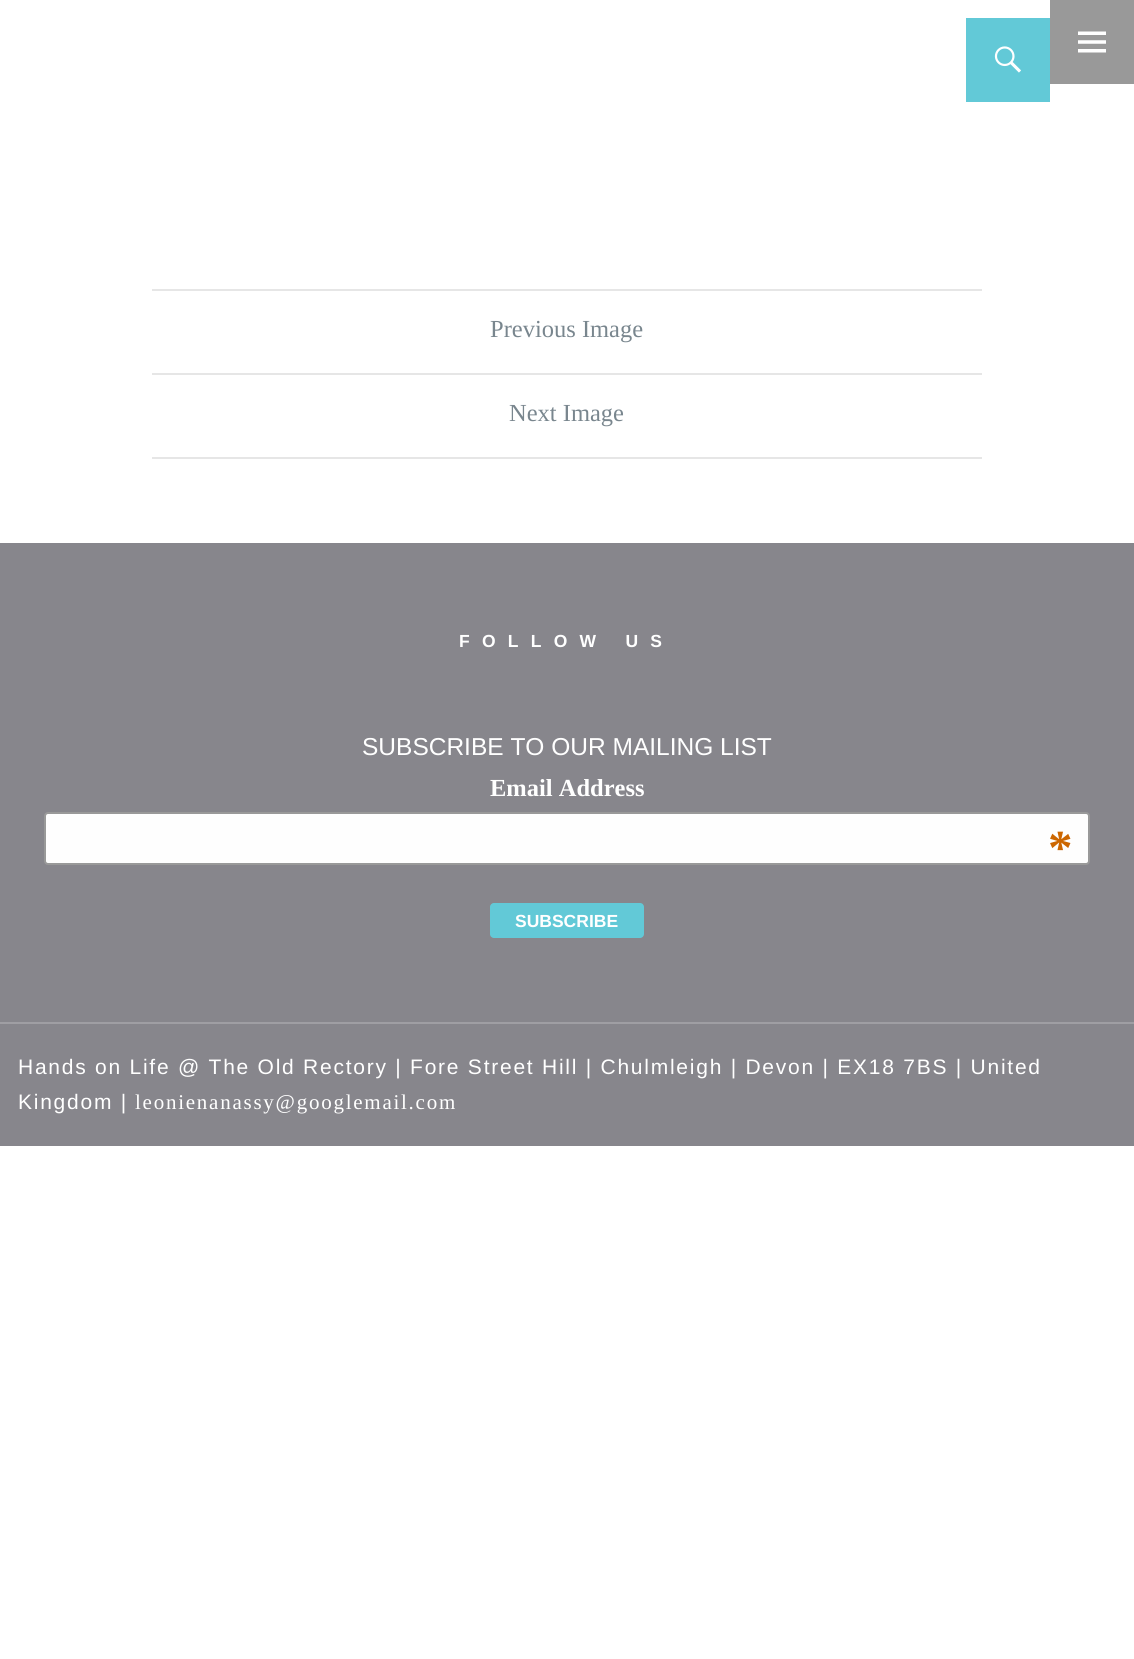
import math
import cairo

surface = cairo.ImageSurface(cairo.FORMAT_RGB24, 1134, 1659)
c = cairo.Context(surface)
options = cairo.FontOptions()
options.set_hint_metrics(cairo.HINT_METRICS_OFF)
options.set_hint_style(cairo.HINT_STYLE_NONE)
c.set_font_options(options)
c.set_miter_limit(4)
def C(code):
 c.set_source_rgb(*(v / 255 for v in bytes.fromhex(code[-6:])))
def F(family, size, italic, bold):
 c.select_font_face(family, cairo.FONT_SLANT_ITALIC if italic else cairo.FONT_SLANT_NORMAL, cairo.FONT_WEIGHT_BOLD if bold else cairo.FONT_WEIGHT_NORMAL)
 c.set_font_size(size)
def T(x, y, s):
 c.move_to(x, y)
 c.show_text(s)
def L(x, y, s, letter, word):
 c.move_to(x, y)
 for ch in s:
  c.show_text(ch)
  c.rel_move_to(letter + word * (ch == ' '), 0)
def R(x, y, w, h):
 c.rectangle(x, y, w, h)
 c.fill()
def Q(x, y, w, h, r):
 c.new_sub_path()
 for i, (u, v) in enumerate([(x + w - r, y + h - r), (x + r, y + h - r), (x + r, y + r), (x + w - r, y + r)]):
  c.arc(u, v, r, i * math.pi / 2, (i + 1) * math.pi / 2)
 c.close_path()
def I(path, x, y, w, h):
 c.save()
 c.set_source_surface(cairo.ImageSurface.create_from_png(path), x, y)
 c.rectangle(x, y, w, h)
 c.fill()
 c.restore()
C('ffffff')
c.paint()
C('62c9d7')
R(966,18,84,84)
I('1.png',994,46,27,27)
C('999999')
R(1050,0,84,84)
I('2.png',1078,31,28,22)
C('e6e6e6')
R(152,289,830,2)
R(152,373,830,2)
F('Liberation Serif',24.5,0,0)
C('79868e')
T(490,337,'Previous Image')
C('e6e6e6')
R(152,457,830,2)
C('79868e')
T(509,421,'Next Image')
C('87868c')
R(0,543,1134,603)
F('Liberation Sans',17.5,0,1)
C('ffffff')
L(459,647,'FOLLOW US',12.25,0)
F('Liberation Sans',24.5,0,0)
T(362,755,'SUBSCRIBE TO OUR MAILING LIST')
F('Liberation Serif',24.5,0,1)
T(490,796,'Email Address')
C('fefefe')
Q(45,813,1044,51,3)
c.fill_preserve()
C('999999')
c.stroke()
F('Liberation Serif',49,0,1)
C('cc6600')
T(1048,864,'*')
C('62c9d7')
Q(490,903,154,35,4)
c.fill()
F('Liberation Sans',17.5,0,1)
C('ffffff')
T(515,927,'SUBSCRIBE')
C('9f9ea3')
R(0,1022,1134,2)
F('Liberation Sans',21,0,0)
C('ffffff')
L(18,1074,'Hands on Life @ The Old Rectory | Fore Street Hill | Chulmleigh | Devon | EX18 7BS | United',1.75,0)
L(18,1109,'Kingdom |',1.75,0)
F('Liberation Serif',21,0,0)
L(135,1109,'leonienanassy@googlemail.com',1.75,0)
surface.write_to_png('o.png')
